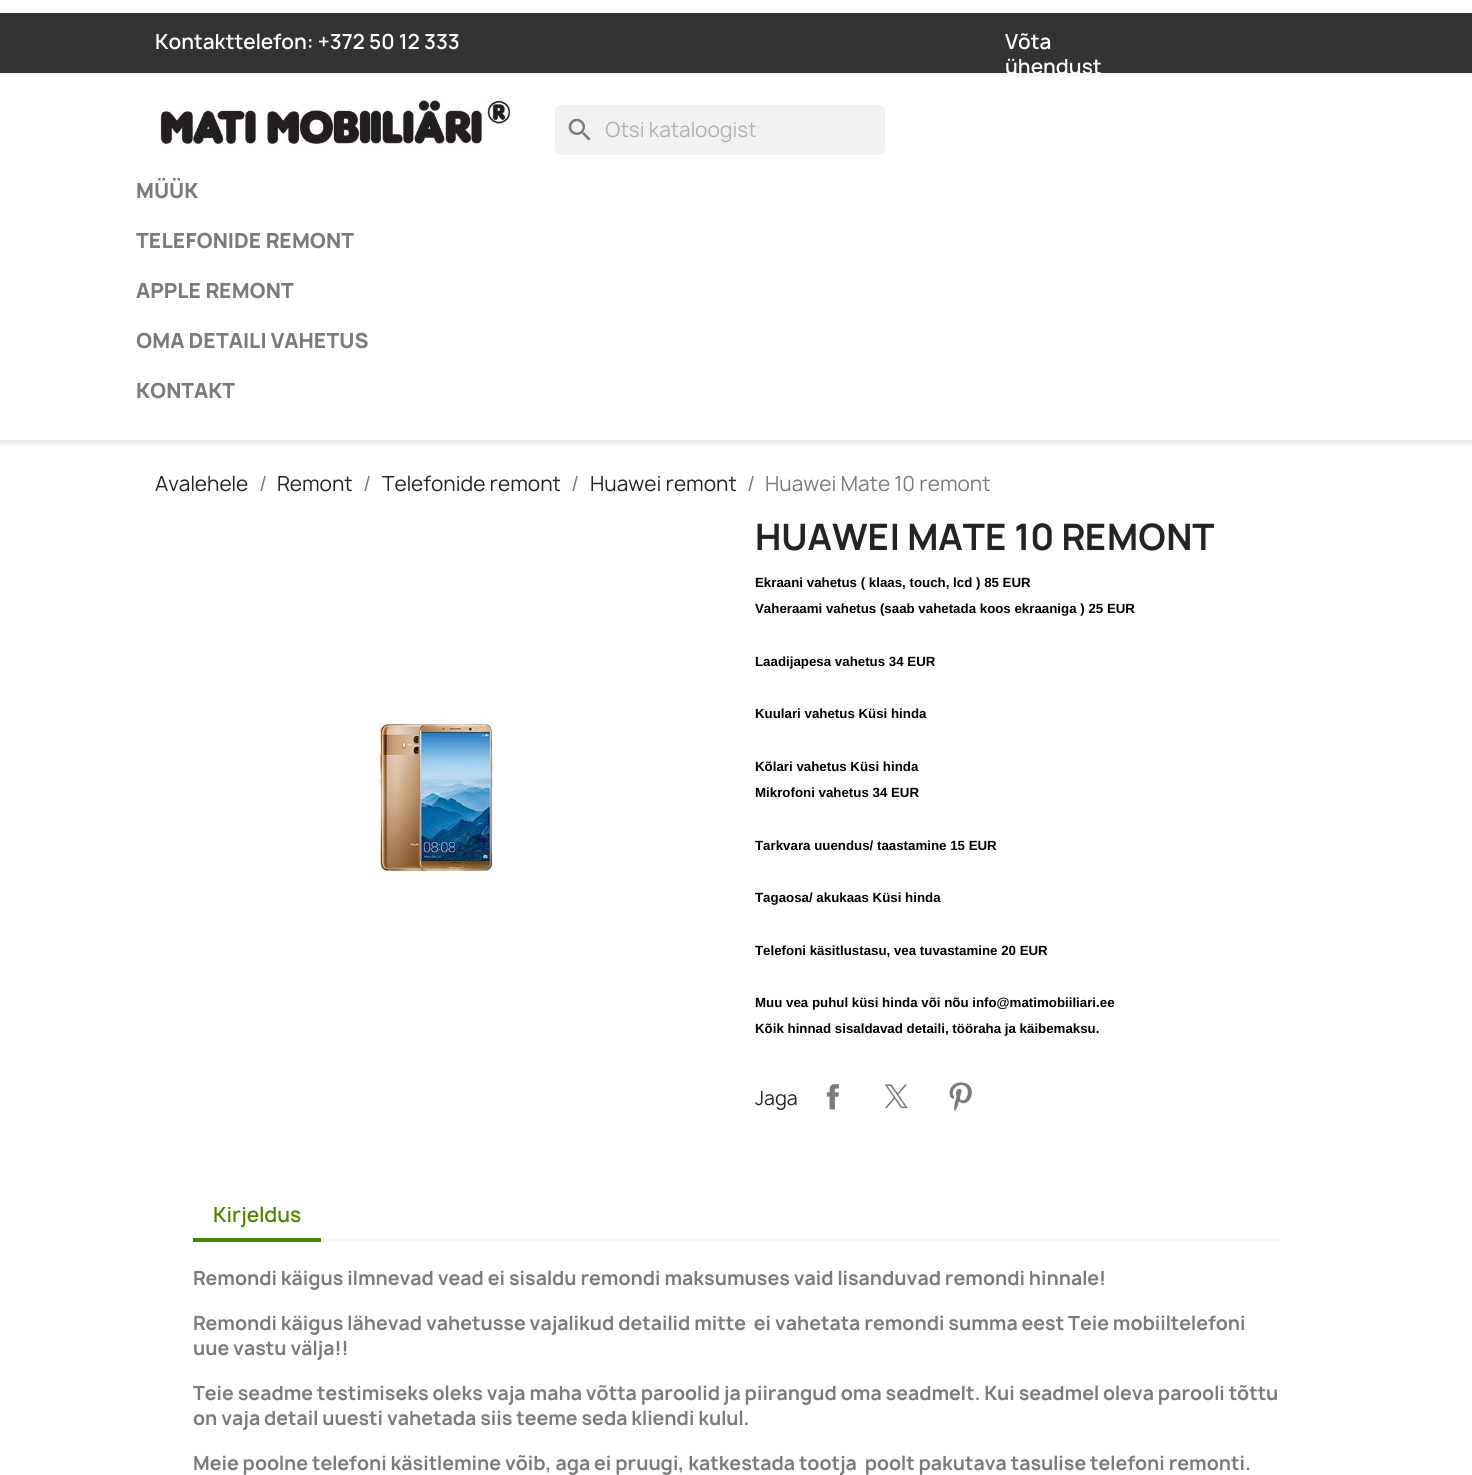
import math
import cairo

surface = cairo.ImageSurface(cairo.FORMAT_RGB24, 1472, 1475)
c = cairo.Context(surface)
options = cairo.FontOptions()
options.set_hint_metrics(cairo.HINT_METRICS_OFF)
options.set_hint_style(cairo.HINT_STYLE_NONE)
c.set_font_options(options)
c.set_miter_limit(4)
def C(code):
 c.set_source_rgb(*(v / 255 for v in bytes.fromhex(code[-6:])))
def F(family, size, italic, bold):
 c.select_font_face(family, cairo.FONT_SLANT_ITALIC if italic else cairo.FONT_SLANT_NORMAL, cairo.FONT_WEIGHT_BOLD if bold else cairo.FONT_WEIGHT_NORMAL)
 c.set_font_size(size)
def T(x, y, s):
 c.move_to(x, y)
 c.show_text(s)
def R(x, y, w, h):
 c.rectangle(x, y, w, h)
 c.fill()
def Q(x, y, w, h, r):
 c.new_sub_path()
 for i, (u, v) in enumerate([(x + w - r, y + h - r), (x + r, y + h - r), (x + r, y + r), (x + w - r, y + r)]):
  c.arc(u, v, r, i * math.pi / 2, (i + 1) * math.pi / 2)
 c.close_path()
def S(x, y, w, h, r, blur, alpha):
 c.push_group_with_content(cairo.CONTENT_ALPHA)
 c.set_operator(cairo.OPERATOR_SOURCE)
 for i in range(15, -16, -2):
  e = blur * i / 6
  if min(w, h) + 2 * e > 0:
   c.set_source_rgba(0, 0, 0, alpha * math.erfc((i - 1) / 8.5) / 2)
   Q(x - e, y - e, w + 2 * e, h + 2 * e, max(0, min(r + e + blur * .6, min(w, h) / 2 + e)))
   c.fill()
 c.mask(c.pop_group())
def I(path, x, y, w, h):
 c.save()
 c.set_source_surface(cairo.ImageSurface.create_from_png(path), x, y)
 c.rectangle(x, y, w, h)
 c.fill()
 c.restore()
C('ffffff')
c.paint()
c.save()
c.rectangle(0,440,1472,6)
c.clip()
C('000000')
S(0,15,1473,428,0,3,.11)
c.restore()
C('333333')
R(0,13,1472,60)
C('f6f6f6')
R(0,73,1472,3)
F('Manrope SemiBold',20,0,0)
C('ffffff')
T(155,49,'Kontakttelefon: +372 50 12 333')
T(1005,49,'Võta')
T(1005,74,'ühendust')
I('1.png',160,100,352,45)
C('f1f1f1')
Q(555,105,330,50,6)
c.fill()
I('2.png',568,118,23,23)
F('Manrope',20,0,0)
C('b1b1b1')
T(605,137,'Otsi kataloogist')
F('Manrope ExtraBold',20,0,0)
C('7a7a7a')
T(136,198,'MÜÜK')
T(136,248,'TELEFONIDE REMONT')
T(136,298,'APPLE REMONT')
T(136,348,'OMA DETAILI VAHETUS')
T(136,398,'KONTAKT')
F('Manrope',20,0,0)
C('232323')
T(155,491,'Avalehele')
C('7a7a7a')
T(259,491,'/')
C('232323')
T(277,491,'Remont')
C('7a7a7a')
T(363,491,'/')
C('232323')
T(382,491,'Telefonide remont')
C('7a7a7a')
T(571,491,'/')
C('232323')
T(590,491,'Huawei remont')
C('7a7a7a')
T(747,491,'/')
T(765,491,'Huawei Mate 10 remont')
I('3.png',379,719,114,154)
F('Manrope',35,0,1)
C('232323')
T(755,550,'HUAWEI MATE 10 REMONT')
F('Liberation Sans',13.3,0,1)
C('000000')
T(755,587,'Ekraani vahetus ( klaas, touch, lcd ) 85 EUR')
T(755,613,'Vaheraami vahetus (saab vahetada koos ekraaniga ) 25 EUR')
T(755,666,'Laadijapesa vahetus 34 EUR')
T(755,718,'Kuulari vahetus Küsi hinda')
T(755,771,'Kõlari vahetus Küsi hinda')
T(755,797,'Mikrofoni vahetus 34 EUR')
T(755,850,'Tarkvara uuendus/ taastamine 15 EUR')
T(755,902,'Tagaosa/ akukaas Küsi hinda')
T(755,955,'Telefoni käsitlustasu, vea tuvastamine 20 EUR')
T(755,1007,'Muu vea puhul küsi hinda või nõu info@matimobiiliari.ee')
T(755,1033,'Kõik hinnad sisaldavad detaili, tööraha ja käibemaksu.')
F('Manrope',18.75,0,0)
C('232323')
T(755,1105,'Jaga')
I('4.png',826,1084,13,26)
I('5.png',884,1084,24,25)
I('6.png',949,1082,23,29)
C('f6f6f6')
R(321,1239,959,3)
C('4a8700')
R(193,1238,128,4)
F('Manrope SemiBold',20,0,0)
T(213,1222,'Kirjeldus')
F('Manrope',18.75,0,1)
C('7a7a7a')
T(193,1285,'Remondi käigus ilmnevad vead ei sisaldu remondi maksumuses vaid lisanduvad remondi hinnale!')
T(193,1330,'Remondi käigus lähevad vahetusse vajalikud detailid mitte  ei vahetata remondi summa eest Teie mobiiltelefoni')
T(193,1355,'uue vastu välja!!')
T(193,1400,'Teie seadme testimiseks oleks vaja maha võtta paroolid ja piirangud oma seadmelt. Kui seadmel oleva parooli tõttu')
T(193,1425,'on vaja detail uuesti vahetada siis teeme seda kliendi kulul.')
T(193,1470,'Meie poolne telefoni käsitlemine võib, aga ei pruugi, katkestada tootja  poolt pakutava tasulise telefoni remonti.')
surface.write_to_png('o.png')
